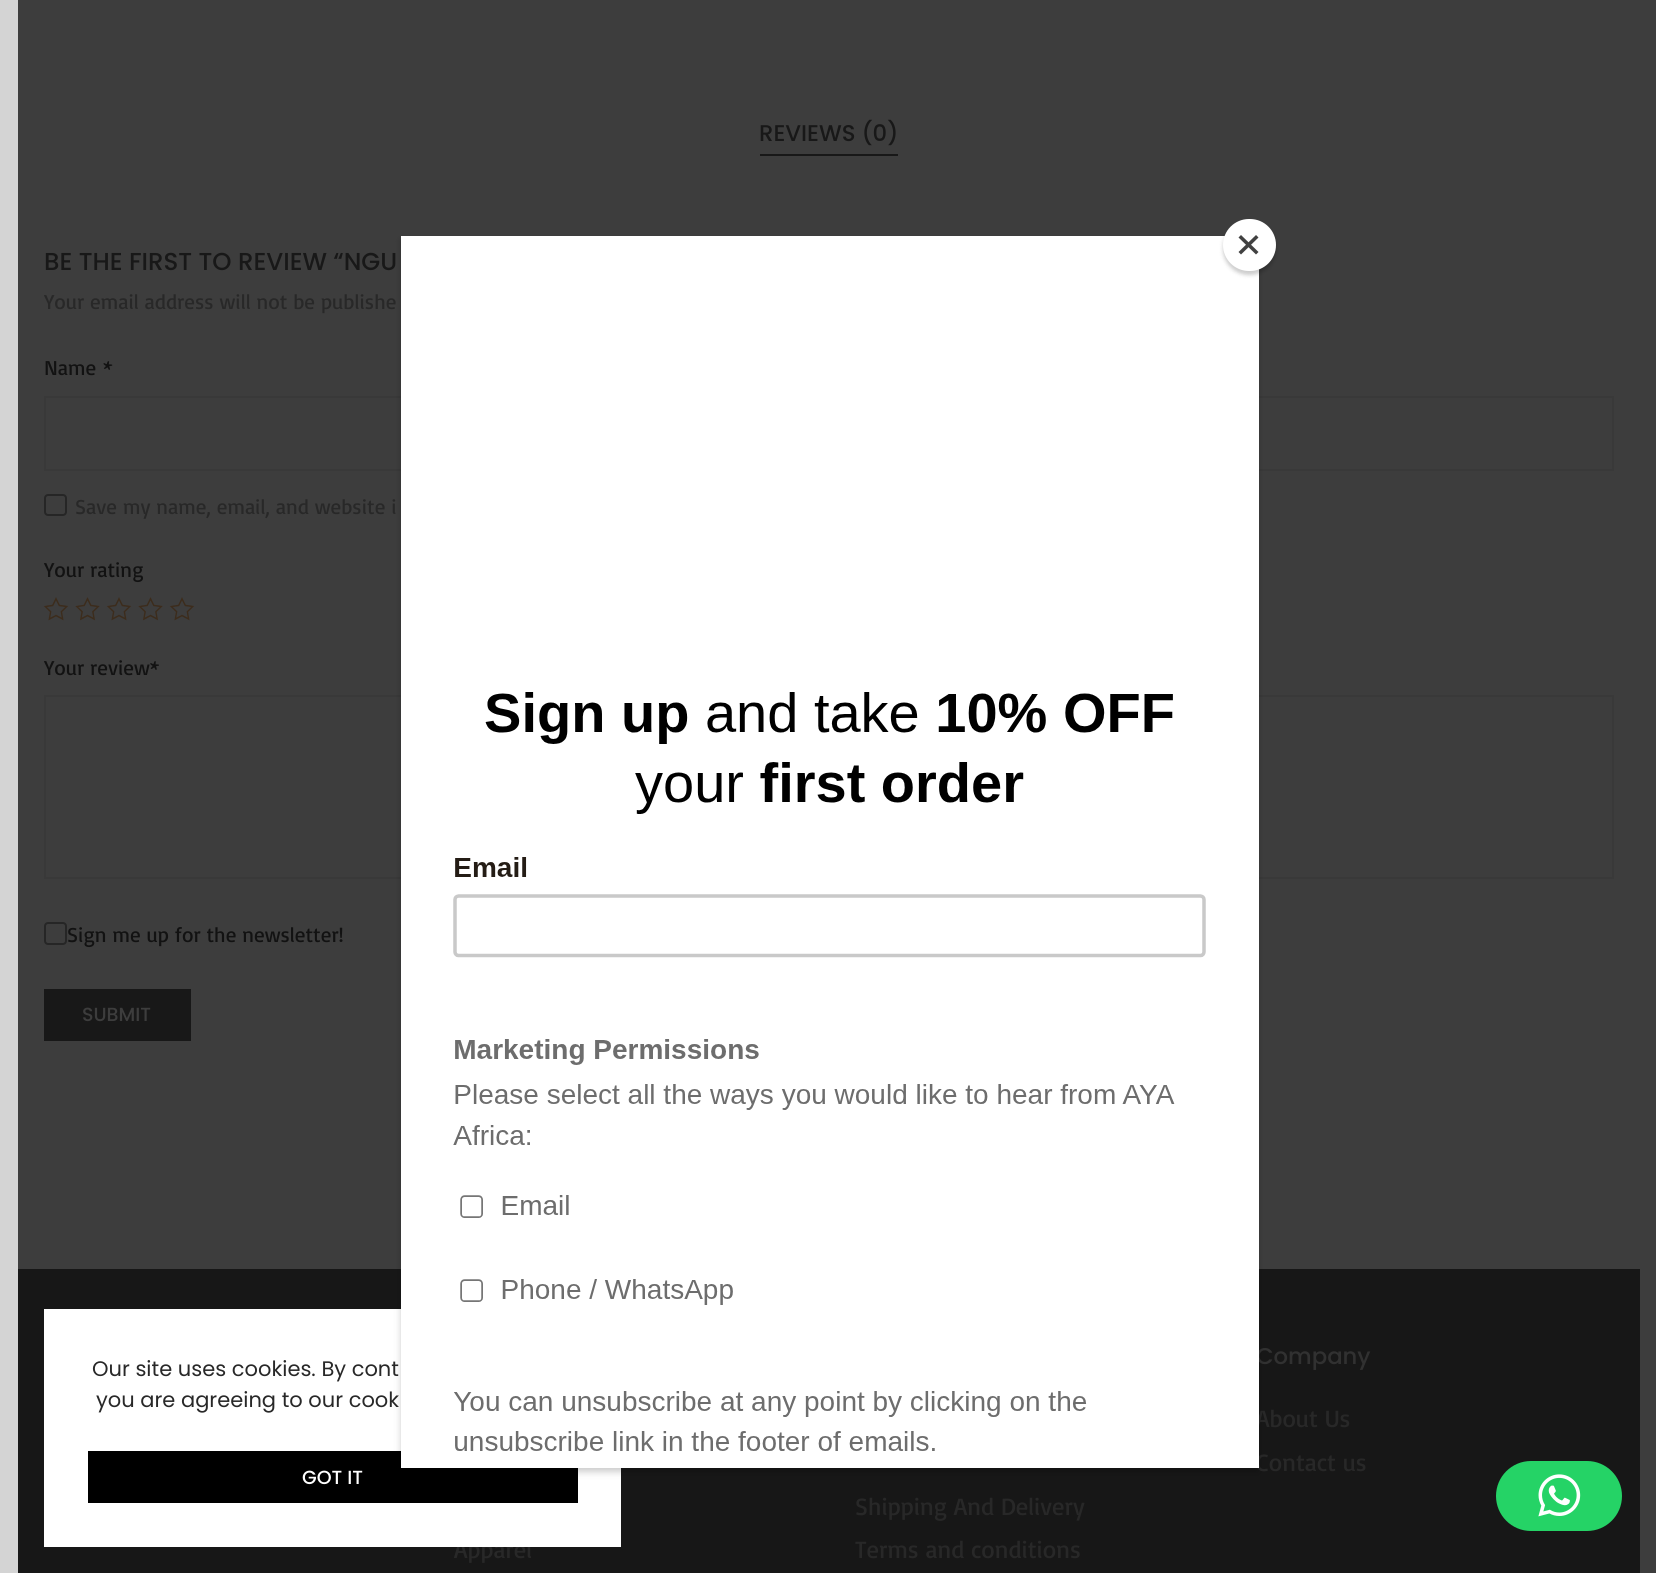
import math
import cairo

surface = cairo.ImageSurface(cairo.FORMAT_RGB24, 1656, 1573)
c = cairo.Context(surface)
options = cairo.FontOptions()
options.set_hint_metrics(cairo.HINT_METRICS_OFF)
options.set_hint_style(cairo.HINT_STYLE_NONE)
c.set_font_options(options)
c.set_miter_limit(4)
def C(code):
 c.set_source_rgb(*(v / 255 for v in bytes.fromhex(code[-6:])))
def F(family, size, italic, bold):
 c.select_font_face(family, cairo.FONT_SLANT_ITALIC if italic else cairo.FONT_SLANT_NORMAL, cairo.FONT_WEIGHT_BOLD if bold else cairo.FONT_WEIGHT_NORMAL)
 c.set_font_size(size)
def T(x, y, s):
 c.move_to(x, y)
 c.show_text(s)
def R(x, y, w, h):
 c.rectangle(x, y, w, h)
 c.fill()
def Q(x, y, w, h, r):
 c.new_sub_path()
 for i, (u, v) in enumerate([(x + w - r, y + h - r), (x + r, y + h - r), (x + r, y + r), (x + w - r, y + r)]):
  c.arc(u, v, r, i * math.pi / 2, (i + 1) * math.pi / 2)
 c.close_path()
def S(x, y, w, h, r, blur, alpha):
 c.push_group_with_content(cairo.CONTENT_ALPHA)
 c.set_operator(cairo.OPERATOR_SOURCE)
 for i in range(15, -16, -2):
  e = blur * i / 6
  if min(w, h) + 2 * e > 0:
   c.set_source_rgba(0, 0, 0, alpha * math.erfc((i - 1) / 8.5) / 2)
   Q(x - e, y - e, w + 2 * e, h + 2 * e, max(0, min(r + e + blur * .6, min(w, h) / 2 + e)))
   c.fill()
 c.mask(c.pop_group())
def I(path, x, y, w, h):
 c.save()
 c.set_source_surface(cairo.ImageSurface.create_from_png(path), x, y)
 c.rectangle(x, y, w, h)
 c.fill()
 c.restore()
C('d4d4d4')
c.paint()
C('3d3d3d')
R(18,0,1638,1573)
C('181818')
R(760,154,138,2)
F('Poppins Medium',22.75,0,0)
T(759,141,'REVIEWS (0)')
F('Poppins Medium',24.5,0,0)
T(44,270,'BE THE FIRST TO REVIEW “NGU')
F('Basic',21,0,0)
C('282828')
T(44,309,'Your email address will not be publishe')
C('121212')
T(44,375,'Name')
T(103,375,'*')
c.rectangle(45,397,768,73)
C('393939')
c.stroke()
c.rectangle(845,397,768,73)
c.stroke()
Q(45,495,21,20,3)
C('262626')
c.stroke()
C('282828')
T(75,514,'Save my name, email, and website i')
C('121212')
T(44,577,'Your rating')
I('1.png',43,597,26,24)
I('2.png',75,597,25,24)
I('1.png',106,597,26,24)
I('2.png',138,597,25,24)
I('1.png',169,597,26,24)
T(44,675,'Your review*')
c.rectangle(45,696,1568,182)
C('393939')
c.stroke()
Q(45,923,21,21,3)
C('262626')
c.stroke()
C('121212')
T(67,942,'Sign me up for the newsletter!')
C('181818')
R(44,989,147,52)
F('Poppins Medium',19,0,0)
C('3d3d3d')
T(82,1021,'SUBMIT')
C('171717')
R(18,1269,1622,304)
F('Poppins Medium',22.75,0,0)
C('313131')
T(1256,1364,'Company')
F('Basic',24.5,0,0)
C('282828')
T(1256,1427,'About Us')
T(1256,1471,'Contact us')
T(454,1558,'Apparel')
T(855,1515,'Shipping And Delivery')
T(855,1558,'Terms and conditions')
C('ffffff')
R(44,1309,577,238)
F('Poppins',21,0,0)
C('282828')
T(92,1376,'Our site uses cookies. By cont')
T(96,1407,'you are agreeing to our cook')
C('000000')
R(88,1451,490,52)
F('Poppins Medium',19,0,0)
C('ffffff')
T(302,1484,'GOT IT')
C('000000')
S(401,240,857,1232,0,3.5,.2)
I('3.png',401,236,858,1232)
S(1223,222,53,53,26.5,2,.2)
C('ffffff')
Q(1223,219,53,52,26)
c.fill()
C('414141')
c.new_path()
c.move_to(1256,235)
c.line_to(1258.5,237.5)
c.line_to(1241,254.5)
c.line_to(1238.5,252)
c.close_path()
c.fill()
c.new_path()
c.move_to(1238.5,237.5)
c.line_to(1241,235)
c.line_to(1258.5,252)
c.line_to(1256,254.5)
c.close_path()
c.fill()
C('25d366')
Q(1496,1461,126,70,35)
c.fill()
I('4.png',1538,1474,43,43)
surface.write_to_png('o.png')
